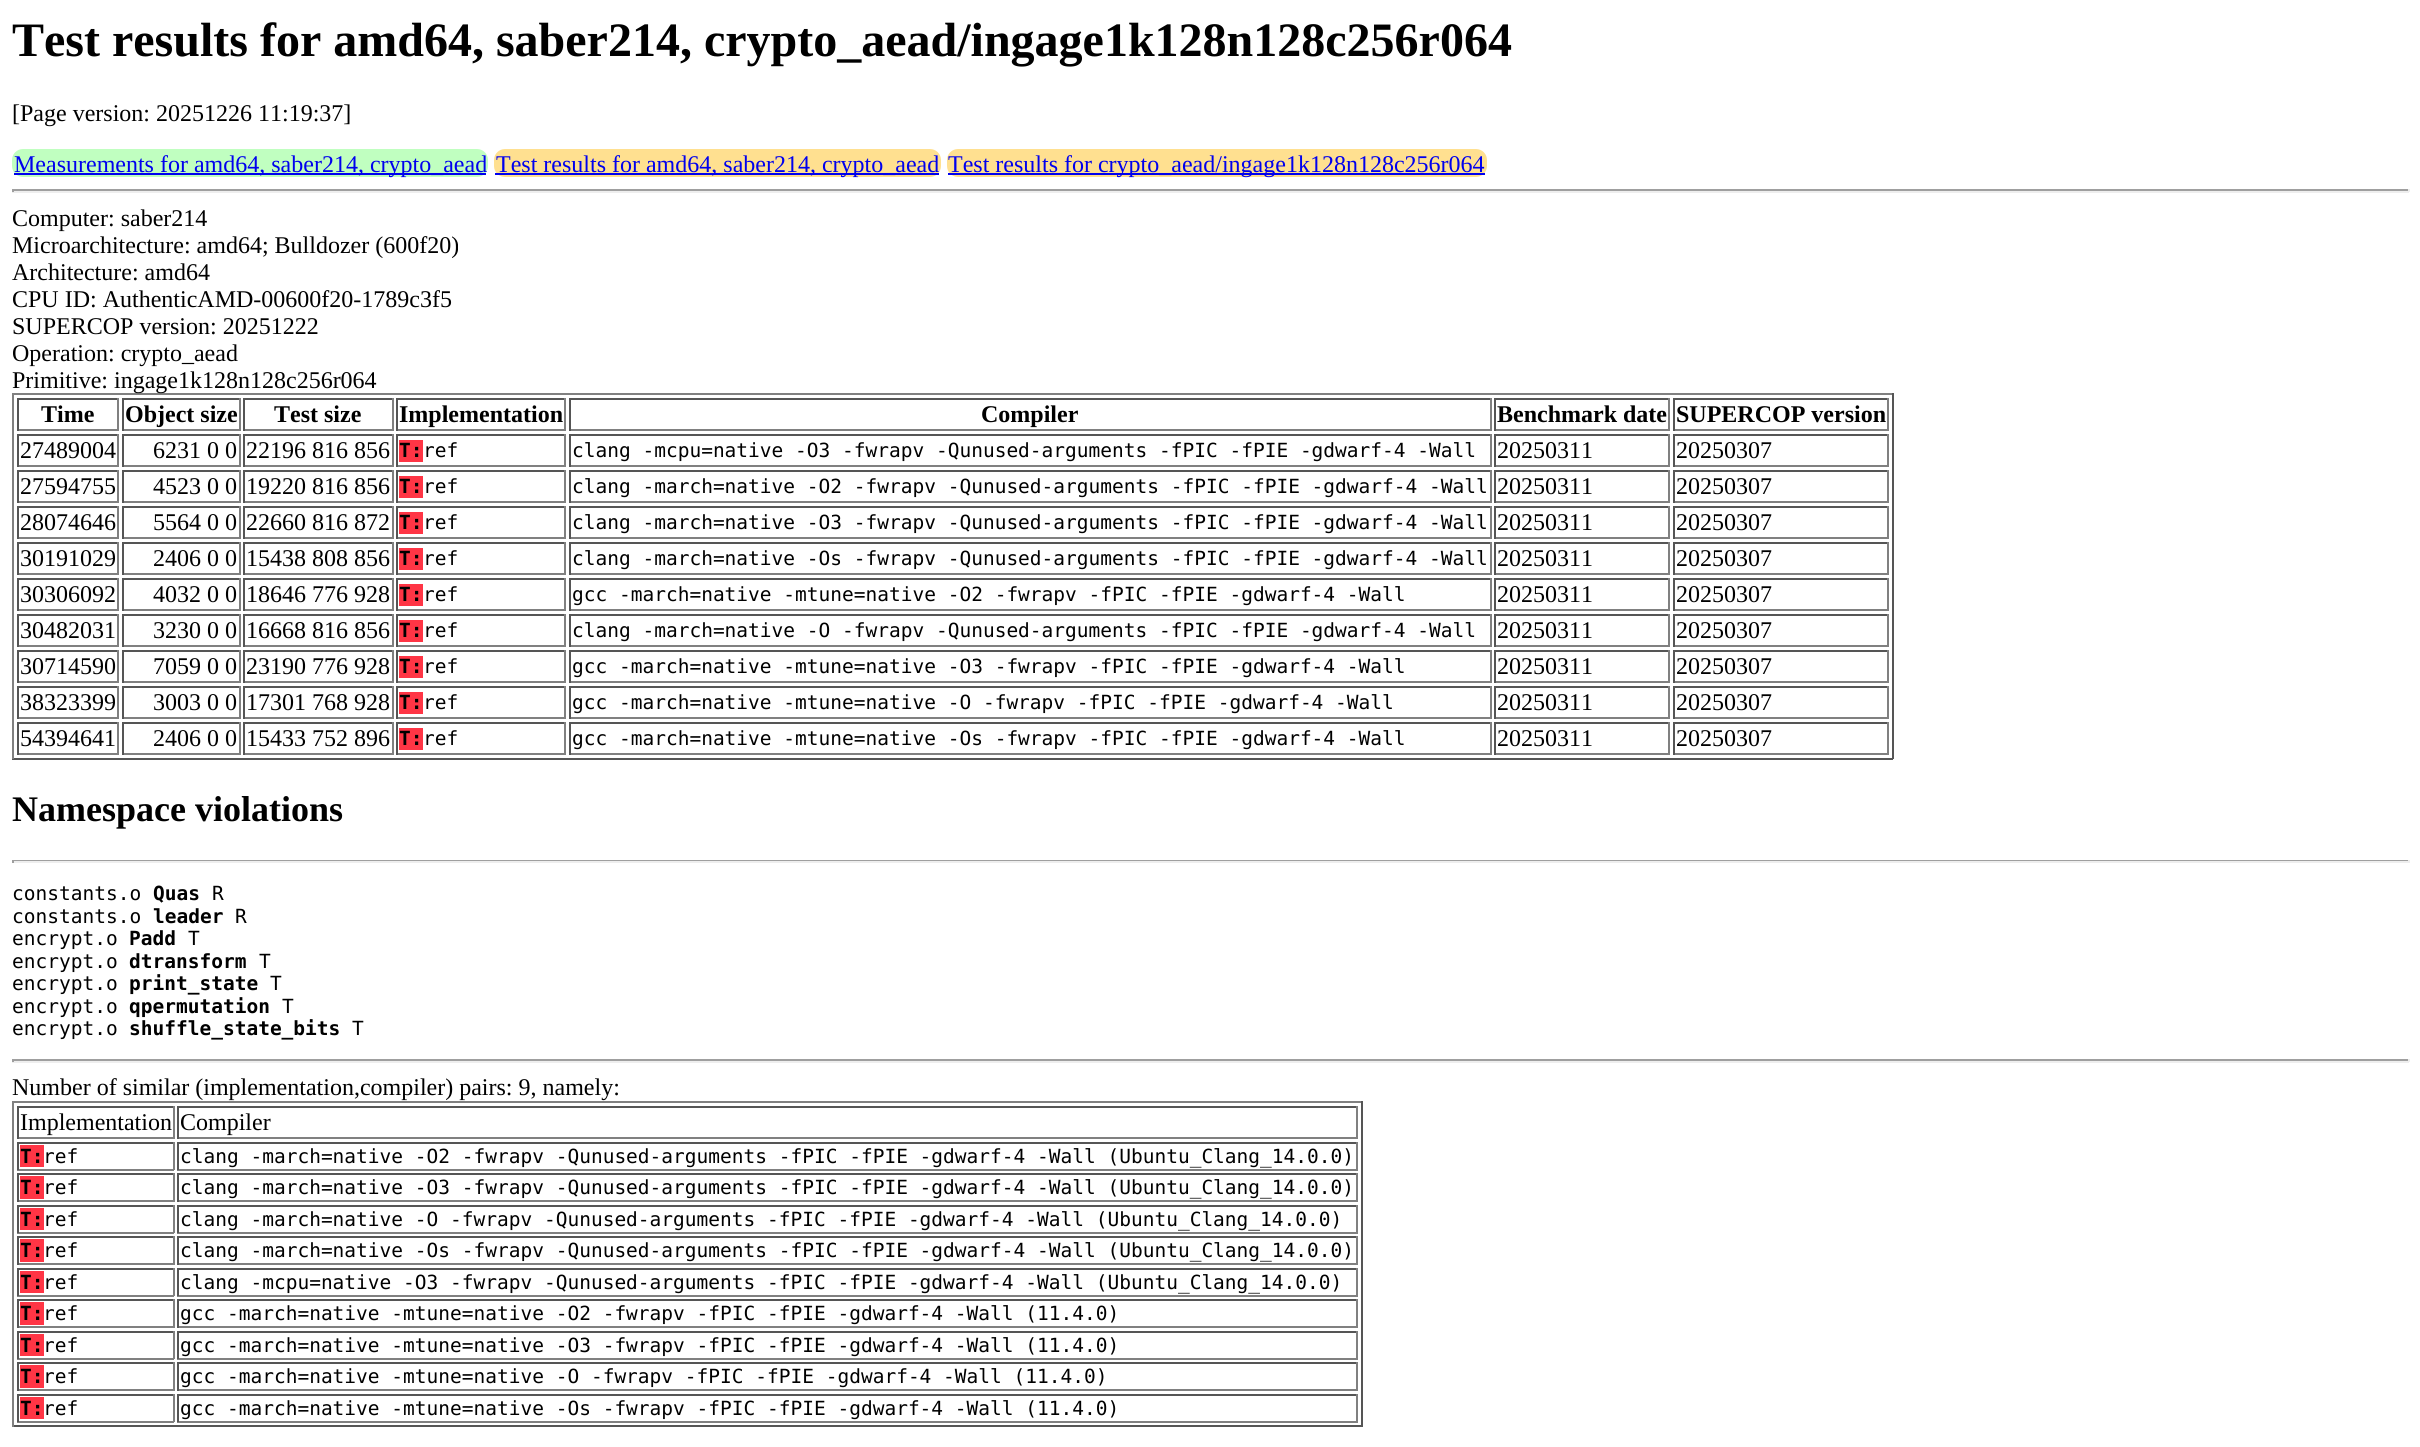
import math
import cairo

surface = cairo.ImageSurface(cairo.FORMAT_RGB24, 2420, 1447)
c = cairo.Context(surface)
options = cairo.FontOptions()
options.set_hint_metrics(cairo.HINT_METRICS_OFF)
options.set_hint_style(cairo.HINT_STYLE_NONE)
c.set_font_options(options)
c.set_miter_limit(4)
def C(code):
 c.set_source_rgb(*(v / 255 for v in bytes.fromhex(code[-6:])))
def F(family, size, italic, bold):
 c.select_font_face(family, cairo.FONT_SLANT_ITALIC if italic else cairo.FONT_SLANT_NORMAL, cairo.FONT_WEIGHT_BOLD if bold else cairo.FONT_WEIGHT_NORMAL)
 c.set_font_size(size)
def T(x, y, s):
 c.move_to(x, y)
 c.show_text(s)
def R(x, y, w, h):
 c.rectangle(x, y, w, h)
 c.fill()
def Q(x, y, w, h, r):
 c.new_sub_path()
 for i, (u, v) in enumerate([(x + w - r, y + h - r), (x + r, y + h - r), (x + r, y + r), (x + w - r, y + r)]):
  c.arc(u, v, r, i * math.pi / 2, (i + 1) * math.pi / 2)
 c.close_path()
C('ffffff')
c.paint()
F('Liberation Serif',48,0,1)
C('000000')
T(12,56,'Test results for amd64, saber214, crypto_aead/ingage1k128n128c256r064')
F('Liberation Serif',24,0,0)
T(12,121,'[Page version: 20251226 11:19:37]')
C('c0ffc0')
Q(12,149,476,28,11)
c.fill()
C('0000ee')
R(14,173,472,2)
T(14,172,'Measurements for amd64, saber214, crypto_aead')
C('ffe090')
Q(494,149,447,28,11)
c.fill()
C('0000ee')
R(495,173,444,2)
T(496,172,'Test results for amd64, saber214, crypto_aead')
C('ffe090')
Q(947,149,540,28,11)
c.fill()
C('0000ee')
R(948,173,537,2)
T(948,172,'Test results for crypto_aead/ingage1k128n128c256r064')
C('9f9f9f')
R(12,189,2397,2)
C('eeeeee')
R(2408,189,2,3)
R(12,191,2397,2)
C('9f9f9f')
R(12,189,2,3)
C('000000')
T(12,226,'Computer: saber214')
T(12,253,'Microarchitecture: amd64; Bulldozer (600f20)')
T(12,280,'Architecture: amd64')
T(12,307,'CPU ID: AuthenticAMD-00600f20-1789c3f5')
T(12,334,'SUPERCOP version: 20251222')
T(12,361,'Operation: crypto_aead')
C('808080')
R(12,393,1881,2)
C('555555')
R(1892,393,2,366)
R(12,758,1881,2)
C('808080')
R(12,393,2,366)
C('000000')
T(12,388,'Primitive: ingage1k128n128c256r064')
C('555555')
R(17,398,102,2)
C('808080')
R(117,398,2,33)
R(17,429,102,2)
C('555555')
R(17,398,2,33)
F('Liberation Serif',24,0,1)
C('000000')
T(41,422,'Time')
C('555555')
R(122,398,118,2)
C('808080')
R(239,398,2,33)
R(122,429,118,2)
C('555555')
R(122,398,2,33)
C('000000')
T(125,422,'Object size')
C('555555')
R(243,398,150,2)
C('808080')
R(392,398,2,33)
R(243,429,150,2)
C('555555')
R(243,398,2,33)
C('000000')
T(274,422,'Test size')
C('555555')
R(396,398,170,2)
C('808080')
R(564,398,2,33)
R(396,429,170,2)
C('555555')
R(396,398,2,33)
C('000000')
T(399,422,'Implementation')
C('555555')
R(569,398,922,2)
C('808080')
R(1490,398,2,33)
R(569,429,922,2)
C('555555')
R(569,398,2,33)
C('000000')
T(981,422,'Compiler')
C('555555')
R(1494,398,176,2)
C('808080')
R(1668,398,2,33)
R(1494,429,176,2)
C('555555')
R(1494,398,2,33)
C('000000')
T(1497,422,'Benchmark date')
C('555555')
R(1673,398,216,2)
C('808080')
R(1887,398,2,33)
R(1673,429,216,2)
C('555555')
R(1673,398,2,33)
C('000000')
T(1676,422,'SUPERCOP version')
C('555555')
R(17,434,102,2)
C('808080')
R(117,434,2,33)
R(17,465,102,2)
C('555555')
R(17,434,2,33)
F('Liberation Serif',24,0,0)
C('000000')
T(20,458,'27489004')
C('555555')
R(122,434,118,2)
C('808080')
R(239,434,2,33)
R(122,465,118,2)
C('555555')
R(122,434,2,33)
C('000000')
T(153,458,'6231 0 0')
C('555555')
R(243,434,150,2)
C('808080')
R(392,434,2,33)
R(243,465,150,2)
C('555555')
R(243,434,2,33)
C('000000')
T(246,458,'22196 816 856')
C('555555')
R(396,434,170,2)
C('808080')
R(564,434,2,33)
R(396,465,170,2)
C('555555')
R(396,434,2,33)
C('ff3545')
R(399,440,24,22)
F('DejaVu Sans Mono',19.5,0,1)
C('000000')
T(399,457,'T:')
F('DejaVu Sans Mono',19.5,0,0)
T(423,457,'ref')
C('555555')
R(569,434,922,2)
C('808080')
R(1490,434,2,33)
R(569,465,922,2)
C('555555')
R(569,434,2,33)
C('000000')
T(572,457,'clang -mcpu=native -O3 -fwrapv -Qunused-arguments -fPIC -fPIE -gdwarf-4 -Wall')
C('555555')
R(1494,434,176,2)
C('808080')
R(1668,434,2,33)
R(1494,465,176,2)
C('555555')
R(1494,434,2,33)
F('Liberation Serif',24,0,0)
C('000000')
T(1497,458,'20250311')
C('555555')
R(1673,434,216,2)
C('808080')
R(1887,434,2,33)
R(1673,465,216,2)
C('555555')
R(1673,434,2,33)
C('000000')
T(1676,458,'20250307')
C('555555')
R(17,470,102,2)
C('808080')
R(117,470,2,33)
R(17,501,102,2)
C('555555')
R(17,470,2,33)
C('000000')
T(20,494,'27594755')
C('555555')
R(122,470,118,2)
C('808080')
R(239,470,2,33)
R(122,501,118,2)
C('555555')
R(122,470,2,33)
C('000000')
T(153,494,'4523 0 0')
C('555555')
R(243,470,150,2)
C('808080')
R(392,470,2,33)
R(243,501,150,2)
C('555555')
R(243,470,2,33)
C('000000')
T(246,494,'19220 816 856')
C('555555')
R(396,470,170,2)
C('808080')
R(564,470,2,33)
R(396,501,170,2)
C('555555')
R(396,470,2,33)
C('ff3545')
R(399,476,24,22)
F('DejaVu Sans Mono',19.5,0,1)
C('000000')
T(399,493,'T:')
F('DejaVu Sans Mono',19.5,0,0)
T(423,493,'ref')
C('555555')
R(569,470,922,2)
C('808080')
R(1490,470,2,33)
R(569,501,922,2)
C('555555')
R(569,470,2,33)
C('000000')
T(572,493,'clang -march=native -O2 -fwrapv -Qunused-arguments -fPIC -fPIE -gdwarf-4 -Wall')
C('555555')
R(1494,470,176,2)
C('808080')
R(1668,470,2,33)
R(1494,501,176,2)
C('555555')
R(1494,470,2,33)
F('Liberation Serif',24,0,0)
C('000000')
T(1497,494,'20250311')
C('555555')
R(1673,470,216,2)
C('808080')
R(1887,470,2,33)
R(1673,501,216,2)
C('555555')
R(1673,470,2,33)
C('000000')
T(1676,494,'20250307')
C('555555')
R(17,506,102,2)
C('808080')
R(117,506,2,33)
R(17,537,102,2)
C('555555')
R(17,506,2,33)
C('000000')
T(20,530,'28074646')
C('555555')
R(122,506,118,2)
C('808080')
R(239,506,2,33)
R(122,537,118,2)
C('555555')
R(122,506,2,33)
C('000000')
T(153,530,'5564 0 0')
C('555555')
R(243,506,150,2)
C('808080')
R(392,506,2,33)
R(243,537,150,2)
C('555555')
R(243,506,2,33)
C('000000')
T(246,530,'22660 816 872')
C('555555')
R(396,506,170,2)
C('808080')
R(564,506,2,33)
R(396,537,170,2)
C('555555')
R(396,506,2,33)
C('ff3545')
R(399,512,24,22)
F('DejaVu Sans Mono',19.5,0,1)
C('000000')
T(399,529,'T:')
F('DejaVu Sans Mono',19.5,0,0)
T(423,529,'ref')
C('555555')
R(569,506,922,2)
C('808080')
R(1490,506,2,33)
R(569,537,922,2)
C('555555')
R(569,506,2,33)
C('000000')
T(572,529,'clang -march=native -O3 -fwrapv -Qunused-arguments -fPIC -fPIE -gdwarf-4 -Wall')
C('555555')
R(1494,506,176,2)
C('808080')
R(1668,506,2,33)
R(1494,537,176,2)
C('555555')
R(1494,506,2,33)
F('Liberation Serif',24,0,0)
C('000000')
T(1497,530,'20250311')
C('555555')
R(1673,506,216,2)
C('808080')
R(1887,506,2,33)
R(1673,537,216,2)
C('555555')
R(1673,506,2,33)
C('000000')
T(1676,530,'20250307')
C('555555')
R(17,542,102,2)
C('808080')
R(117,542,2,33)
R(17,573,102,2)
C('555555')
R(17,542,2,33)
C('000000')
T(20,566,'30191029')
C('555555')
R(122,542,118,2)
C('808080')
R(239,542,2,33)
R(122,573,118,2)
C('555555')
R(122,542,2,33)
C('000000')
T(153,566,'2406 0 0')
C('555555')
R(243,542,150,2)
C('808080')
R(392,542,2,33)
R(243,573,150,2)
C('555555')
R(243,542,2,33)
C('000000')
T(246,566,'15438 808 856')
C('555555')
R(396,542,170,2)
C('808080')
R(564,542,2,33)
R(396,573,170,2)
C('555555')
R(396,542,2,33)
C('ff3545')
R(399,548,24,22)
F('DejaVu Sans Mono',19.5,0,1)
C('000000')
T(399,565,'T:')
F('DejaVu Sans Mono',19.5,0,0)
T(423,565,'ref')
C('555555')
R(569,542,922,2)
C('808080')
R(1490,542,2,33)
R(569,573,922,2)
C('555555')
R(569,542,2,33)
C('000000')
T(572,565,'clang -march=native -Os -fwrapv -Qunused-arguments -fPIC -fPIE -gdwarf-4 -Wall')
C('555555')
R(1494,542,176,2)
C('808080')
R(1668,542,2,33)
R(1494,573,176,2)
C('555555')
R(1494,542,2,33)
F('Liberation Serif',24,0,0)
C('000000')
T(1497,566,'20250311')
C('555555')
R(1673,542,216,2)
C('808080')
R(1887,542,2,33)
R(1673,573,216,2)
C('555555')
R(1673,542,2,33)
C('000000')
T(1676,566,'20250307')
C('555555')
R(17,578,102,2)
C('808080')
R(117,578,2,33)
R(17,609,102,2)
C('555555')
R(17,578,2,33)
C('000000')
T(20,602,'30306092')
C('555555')
R(122,578,118,2)
C('808080')
R(239,578,2,33)
R(122,609,118,2)
C('555555')
R(122,578,2,33)
C('000000')
T(153,602,'4032 0 0')
C('555555')
R(243,578,150,2)
C('808080')
R(392,578,2,33)
R(243,609,150,2)
C('555555')
R(243,578,2,33)
C('000000')
T(246,602,'18646 776 928')
C('555555')
R(396,578,170,2)
C('808080')
R(564,578,2,33)
R(396,609,170,2)
C('555555')
R(396,578,2,33)
C('ff3545')
R(399,584,24,22)
F('DejaVu Sans Mono',19.5,0,1)
C('000000')
T(399,601,'T:')
F('DejaVu Sans Mono',19.5,0,0)
T(423,601,'ref')
C('555555')
R(569,578,922,2)
C('808080')
R(1490,578,2,33)
R(569,609,922,2)
C('555555')
R(569,578,2,33)
C('000000')
T(572,601,'gcc -march=native -mtune=native -O2 -fwrapv -fPIC -fPIE -gdwarf-4 -Wall')
C('555555')
R(1494,578,176,2)
C('808080')
R(1668,578,2,33)
R(1494,609,176,2)
C('555555')
R(1494,578,2,33)
F('Liberation Serif',24,0,0)
C('000000')
T(1497,602,'20250311')
C('555555')
R(1673,578,216,2)
C('808080')
R(1887,578,2,33)
R(1673,609,216,2)
C('555555')
R(1673,578,2,33)
C('000000')
T(1676,602,'20250307')
C('555555')
R(17,614,102,2)
C('808080')
R(117,614,2,33)
R(17,645,102,2)
C('555555')
R(17,614,2,33)
C('000000')
T(20,638,'30482031')
C('555555')
R(122,614,118,2)
C('808080')
R(239,614,2,33)
R(122,645,118,2)
C('555555')
R(122,614,2,33)
C('000000')
T(153,638,'3230 0 0')
C('555555')
R(243,614,150,2)
C('808080')
R(392,614,2,33)
R(243,645,150,2)
C('555555')
R(243,614,2,33)
C('000000')
T(246,638,'16668 816 856')
C('555555')
R(396,614,170,2)
C('808080')
R(564,614,2,33)
R(396,645,170,2)
C('555555')
R(396,614,2,33)
C('ff3545')
R(399,620,24,22)
F('DejaVu Sans Mono',19.5,0,1)
C('000000')
T(399,637,'T:')
F('DejaVu Sans Mono',19.5,0,0)
T(423,637,'ref')
C('555555')
R(569,614,922,2)
C('808080')
R(1490,614,2,33)
R(569,645,922,2)
C('555555')
R(569,614,2,33)
C('000000')
T(572,637,'clang -march=native -O -fwrapv -Qunused-arguments -fPIC -fPIE -gdwarf-4 -Wall')
C('555555')
R(1494,614,176,2)
C('808080')
R(1668,614,2,33)
R(1494,645,176,2)
C('555555')
R(1494,614,2,33)
F('Liberation Serif',24,0,0)
C('000000')
T(1497,638,'20250311')
C('555555')
R(1673,614,216,2)
C('808080')
R(1887,614,2,33)
R(1673,645,216,2)
C('555555')
R(1673,614,2,33)
C('000000')
T(1676,638,'20250307')
C('555555')
R(17,650,102,2)
C('808080')
R(117,650,2,33)
R(17,681,102,2)
C('555555')
R(17,650,2,33)
C('000000')
T(20,674,'30714590')
C('555555')
R(122,650,118,2)
C('808080')
R(239,650,2,33)
R(122,681,118,2)
C('555555')
R(122,650,2,33)
C('000000')
T(153,674,'7059 0 0')
C('555555')
R(243,650,150,2)
C('808080')
R(392,650,2,33)
R(243,681,150,2)
C('555555')
R(243,650,2,33)
C('000000')
T(246,674,'23190 776 928')
C('555555')
R(396,650,170,2)
C('808080')
R(564,650,2,33)
R(396,681,170,2)
C('555555')
R(396,650,2,33)
C('ff3545')
R(399,656,24,22)
F('DejaVu Sans Mono',19.5,0,1)
C('000000')
T(399,673,'T:')
F('DejaVu Sans Mono',19.5,0,0)
T(423,673,'ref')
C('555555')
R(569,650,922,2)
C('808080')
R(1490,650,2,33)
R(569,681,922,2)
C('555555')
R(569,650,2,33)
C('000000')
T(572,673,'gcc -march=native -mtune=native -O3 -fwrapv -fPIC -fPIE -gdwarf-4 -Wall')
C('555555')
R(1494,650,176,2)
C('808080')
R(1668,650,2,33)
R(1494,681,176,2)
C('555555')
R(1494,650,2,33)
F('Liberation Serif',24,0,0)
C('000000')
T(1497,674,'20250311')
C('555555')
R(1673,650,216,2)
C('808080')
R(1887,650,2,33)
R(1673,681,216,2)
C('555555')
R(1673,650,2,33)
C('000000')
T(1676,674,'20250307')
C('555555')
R(17,686,102,2)
C('808080')
R(117,686,2,33)
R(17,717,102,2)
C('555555')
R(17,686,2,33)
C('000000')
T(20,710,'38323399')
C('555555')
R(122,686,118,2)
C('808080')
R(239,686,2,33)
R(122,717,118,2)
C('555555')
R(122,686,2,33)
C('000000')
T(153,710,'3003 0 0')
C('555555')
R(243,686,150,2)
C('808080')
R(392,686,2,33)
R(243,717,150,2)
C('555555')
R(243,686,2,33)
C('000000')
T(246,710,'17301 768 928')
C('555555')
R(396,686,170,2)
C('808080')
R(564,686,2,33)
R(396,717,170,2)
C('555555')
R(396,686,2,33)
C('ff3545')
R(399,692,24,22)
F('DejaVu Sans Mono',19.5,0,1)
C('000000')
T(399,709,'T:')
F('DejaVu Sans Mono',19.5,0,0)
T(423,709,'ref')
C('555555')
R(569,686,922,2)
C('808080')
R(1490,686,2,33)
R(569,717,922,2)
C('555555')
R(569,686,2,33)
C('000000')
T(572,709,'gcc -march=native -mtune=native -O -fwrapv -fPIC -fPIE -gdwarf-4 -Wall')
C('555555')
R(1494,686,176,2)
C('808080')
R(1668,686,2,33)
R(1494,717,176,2)
C('555555')
R(1494,686,2,33)
F('Liberation Serif',24,0,0)
C('000000')
T(1497,710,'20250311')
C('555555')
R(1673,686,216,2)
C('808080')
R(1887,686,2,33)
R(1673,717,216,2)
C('555555')
R(1673,686,2,33)
C('000000')
T(1676,710,'20250307')
C('555555')
R(17,722,102,2)
C('808080')
R(117,722,2,33)
R(17,753,102,2)
C('555555')
R(17,722,2,33)
C('000000')
T(20,746,'54394641')
C('555555')
R(122,722,118,2)
C('808080')
R(239,722,2,33)
R(122,753,118,2)
C('555555')
R(122,722,2,33)
C('000000')
T(153,746,'2406 0 0')
C('555555')
R(243,722,150,2)
C('808080')
R(392,722,2,33)
R(243,753,150,2)
C('555555')
R(243,722,2,33)
C('000000')
T(246,746,'15433 752 896')
C('555555')
R(396,722,170,2)
C('808080')
R(564,722,2,33)
R(396,753,170,2)
C('555555')
R(396,722,2,33)
C('ff3545')
R(399,728,24,22)
F('DejaVu Sans Mono',19.5,0,1)
C('000000')
T(399,745,'T:')
F('DejaVu Sans Mono',19.5,0,0)
T(423,745,'ref')
C('555555')
R(569,722,922,2)
C('808080')
R(1490,722,2,33)
R(569,753,922,2)
C('555555')
R(569,722,2,33)
C('000000')
T(572,745,'gcc -march=native -mtune=native -Os -fwrapv -fPIC -fPIE -gdwarf-4 -Wall')
C('555555')
R(1494,722,176,2)
C('808080')
R(1668,722,2,33)
R(1494,753,176,2)
C('555555')
R(1494,722,2,33)
F('Liberation Serif',24,0,0)
C('000000')
T(1497,746,'20250311')
C('555555')
R(1673,722,216,2)
C('808080')
R(1887,722,2,33)
R(1673,753,216,2)
C('555555')
R(1673,722,2,33)
C('000000')
T(1676,746,'20250307')
F('Liberation Serif',36,0,1)
T(12,821,'Namespace violations')
C('9f9f9f')
R(12,860,2397,1)
C('eeeeee')
R(2408,860,2,3)
R(12,861,2397,2)
C('9f9f9f')
R(12,860,2,3)
F('DejaVu Sans Mono',19.5,0,0)
C('000000')
T(12,900,'constants.o')
F('DejaVu Sans Mono',19.5,0,1)
T(153,900,'Quas')
F('DejaVu Sans Mono',19.5,0,0)
T(212,900,'R')
T(12,923,'constants.o')
F('DejaVu Sans Mono',19.5,0,1)
T(153,923,'leader')
F('DejaVu Sans Mono',19.5,0,0)
T(235,923,'R')
T(12,945,'encrypt.o')
F('DejaVu Sans Mono',19.5,0,1)
T(129,945,'Padd')
F('DejaVu Sans Mono',19.5,0,0)
T(188,945,'T')
T(12,968,'encrypt.o')
F('DejaVu Sans Mono',19.5,0,1)
T(129,968,'dtransform')
F('DejaVu Sans Mono',19.5,0,0)
T(259,968,'T')
T(12,990,'encrypt.o')
F('DejaVu Sans Mono',19.5,0,1)
T(129,990,'print_state')
F('DejaVu Sans Mono',19.5,0,0)
T(270,990,'T')
T(12,1013,'encrypt.o')
F('DejaVu Sans Mono',19.5,0,1)
T(129,1013,'qpermutation')
F('DejaVu Sans Mono',19.5,0,0)
T(282,1013,'T')
T(12,1035,'encrypt.o')
F('DejaVu Sans Mono',19.5,0,1)
T(129,1035,'shuffle_state_bits')
F('DejaVu Sans Mono',19.5,0,0)
T(352,1035,'T')
C('9f9f9f')
R(12,1059,2397,2)
C('eeeeee')
R(2408,1059,2,3)
R(12,1061,2397,2)
C('9f9f9f')
R(12,1059,2,3)
F('Liberation Serif',24,0,0)
C('000000')
T(12,1095,'Number of similar (implementation,compiler) pairs: 9, namely:')
C('808080')
R(12,1101,1350,2)
C('555555')
R(1361,1101,2,326)
R(12,1425,1350,2)
C('808080')
R(12,1101,2,326)
C('555555')
R(17,1106,157,2)
C('808080')
R(173,1106,2,33)
R(17,1137,157,2)
C('555555')
R(17,1106,2,33)
C('000000')
T(20,1130,'Implementation')
C('555555')
R(177,1106,1181,2)
C('808080')
R(1356,1106,2,33)
R(177,1137,1181,2)
C('555555')
R(177,1106,2,33)
C('000000')
T(180,1130,'Compiler')
C('555555')
R(17,1142,157,2)
C('808080')
R(173,1142,2,28)
R(17,1169,157,2)
C('555555')
R(17,1142,2,28)
C('ff3545')
R(20,1145,24,22)
F('DejaVu Sans Mono',19.5,0,1)
C('000000')
T(20,1163,'T:')
F('DejaVu Sans Mono',19.5,0,0)
T(43,1163,'ref')
C('555555')
R(177,1142,1181,2)
C('808080')
R(1356,1142,2,28)
R(177,1169,1181,2)
C('555555')
R(177,1142,2,28)
C('000000')
T(180,1163,'clang -march=native -O2 -fwrapv -Qunused-arguments -fPIC -fPIE -gdwarf-4 -Wall (Ubuntu_Clang_14.0.0)')
C('555555')
R(17,1173,157,2)
C('808080')
R(173,1173,2,29)
R(17,1200,157,2)
C('555555')
R(17,1173,2,29)
C('ff3545')
R(20,1176,24,23)
F('DejaVu Sans Mono',19.5,0,1)
C('000000')
T(20,1194,'T:')
F('DejaVu Sans Mono',19.5,0,0)
T(43,1194,'ref')
C('555555')
R(177,1173,1181,2)
C('808080')
R(1356,1173,2,29)
R(177,1200,1181,2)
C('555555')
R(177,1173,2,29)
C('000000')
T(180,1194,'clang -march=native -O3 -fwrapv -Qunused-arguments -fPIC -fPIE -gdwarf-4 -Wall (Ubuntu_Clang_14.0.0)')
C('555555')
R(17,1205,157,2)
C('808080')
R(173,1205,2,28)
R(17,1232,157,2)
C('555555')
R(17,1205,2,28)
C('ff3545')
R(20,1208,24,22)
F('DejaVu Sans Mono',19.5,0,1)
C('000000')
T(20,1226,'T:')
F('DejaVu Sans Mono',19.5,0,0)
T(43,1226,'ref')
C('555555')
R(177,1205,1181,2)
C('808080')
R(1356,1205,2,28)
R(177,1232,1181,2)
C('555555')
R(177,1205,2,28)
C('000000')
T(180,1226,'clang -march=native -O -fwrapv -Qunused-arguments -fPIC -fPIE -gdwarf-4 -Wall (Ubuntu_Clang_14.0.0)')
C('555555')
R(17,1236,157,2)
C('808080')
R(173,1236,2,29)
R(17,1263,157,2)
C('555555')
R(17,1236,2,29)
C('ff3545')
R(20,1239,24,23)
F('DejaVu Sans Mono',19.5,0,1)
C('000000')
T(20,1257,'T:')
F('DejaVu Sans Mono',19.5,0,0)
T(43,1257,'ref')
C('555555')
R(177,1236,1181,2)
C('808080')
R(1356,1236,2,29)
R(177,1263,1181,2)
C('555555')
R(177,1236,2,29)
C('000000')
T(180,1257,'clang -march=native -Os -fwrapv -Qunused-arguments -fPIC -fPIE -gdwarf-4 -Wall (Ubuntu_Clang_14.0.0)')
C('555555')
R(17,1268,157,2)
C('808080')
R(173,1268,2,28)
R(17,1295,157,2)
C('555555')
R(17,1268,2,28)
C('ff3545')
R(20,1271,24,22)
F('DejaVu Sans Mono',19.5,0,1)
C('000000')
T(20,1289,'T:')
F('DejaVu Sans Mono',19.5,0,0)
T(43,1289,'ref')
C('555555')
R(177,1268,1181,2)
C('808080')
R(1356,1268,2,28)
R(177,1295,1181,2)
C('555555')
R(177,1268,2,28)
C('000000')
T(180,1289,'clang -mcpu=native -O3 -fwrapv -Qunused-arguments -fPIC -fPIE -gdwarf-4 -Wall (Ubuntu_Clang_14.0.0)')
C('555555')
R(17,1299,157,2)
C('808080')
R(173,1299,2,29)
R(17,1326,157,2)
C('555555')
R(17,1299,2,29)
C('ff3545')
R(20,1302,24,23)
F('DejaVu Sans Mono',19.5,0,1)
C('000000')
T(20,1320,'T:')
F('DejaVu Sans Mono',19.5,0,0)
T(43,1320,'ref')
C('555555')
R(177,1299,1181,2)
C('808080')
R(1356,1299,2,29)
R(177,1326,1181,2)
C('555555')
R(177,1299,2,29)
C('000000')
T(180,1320,'gcc -march=native -mtune=native -O2 -fwrapv -fPIC -fPIE -gdwarf-4 -Wall (11.4.0)')
C('555555')
R(17,1331,157,2)
C('808080')
R(173,1331,2,28)
R(17,1358,157,2)
C('555555')
R(17,1331,2,28)
C('ff3545')
R(20,1334,24,22)
F('DejaVu Sans Mono',19.5,0,1)
C('000000')
T(20,1352,'T:')
F('DejaVu Sans Mono',19.5,0,0)
T(43,1352,'ref')
C('555555')
R(177,1331,1181,2)
C('808080')
R(1356,1331,2,28)
R(177,1358,1181,2)
C('555555')
R(177,1331,2,28)
C('000000')
T(180,1352,'gcc -march=native -mtune=native -O3 -fwrapv -fPIC -fPIE -gdwarf-4 -Wall (11.4.0)')
C('555555')
R(17,1362,157,2)
C('808080')
R(173,1362,2,29)
R(17,1389,157,2)
C('555555')
R(17,1362,2,29)
C('ff3545')
R(20,1365,24,23)
F('DejaVu Sans Mono',19.5,0,1)
C('000000')
T(20,1383,'T:')
F('DejaVu Sans Mono',19.5,0,0)
T(43,1383,'ref')
C('555555')
R(177,1362,1181,2)
C('808080')
R(1356,1362,2,29)
R(177,1389,1181,2)
C('555555')
R(177,1362,2,29)
C('000000')
T(180,1383,'gcc -march=native -mtune=native -O -fwrapv -fPIC -fPIE -gdwarf-4 -Wall (11.4.0)')
C('555555')
R(17,1394,157,2)
C('808080')
R(173,1394,2,28)
R(17,1421,157,2)
C('555555')
R(17,1394,2,28)
C('ff3545')
R(20,1397,24,22)
F('DejaVu Sans Mono',19.5,0,1)
C('000000')
T(20,1415,'T:')
F('DejaVu Sans Mono',19.5,0,0)
T(43,1415,'ref')
C('555555')
R(177,1394,1181,2)
C('808080')
R(1356,1394,2,28)
R(177,1421,1181,2)
C('555555')
R(177,1394,2,28)
C('000000')
T(180,1415,'gcc -march=native -mtune=native -Os -fwrapv -fPIC -fPIE -gdwarf-4 -Wall (11.4.0)')
surface.write_to_png('o.png')
